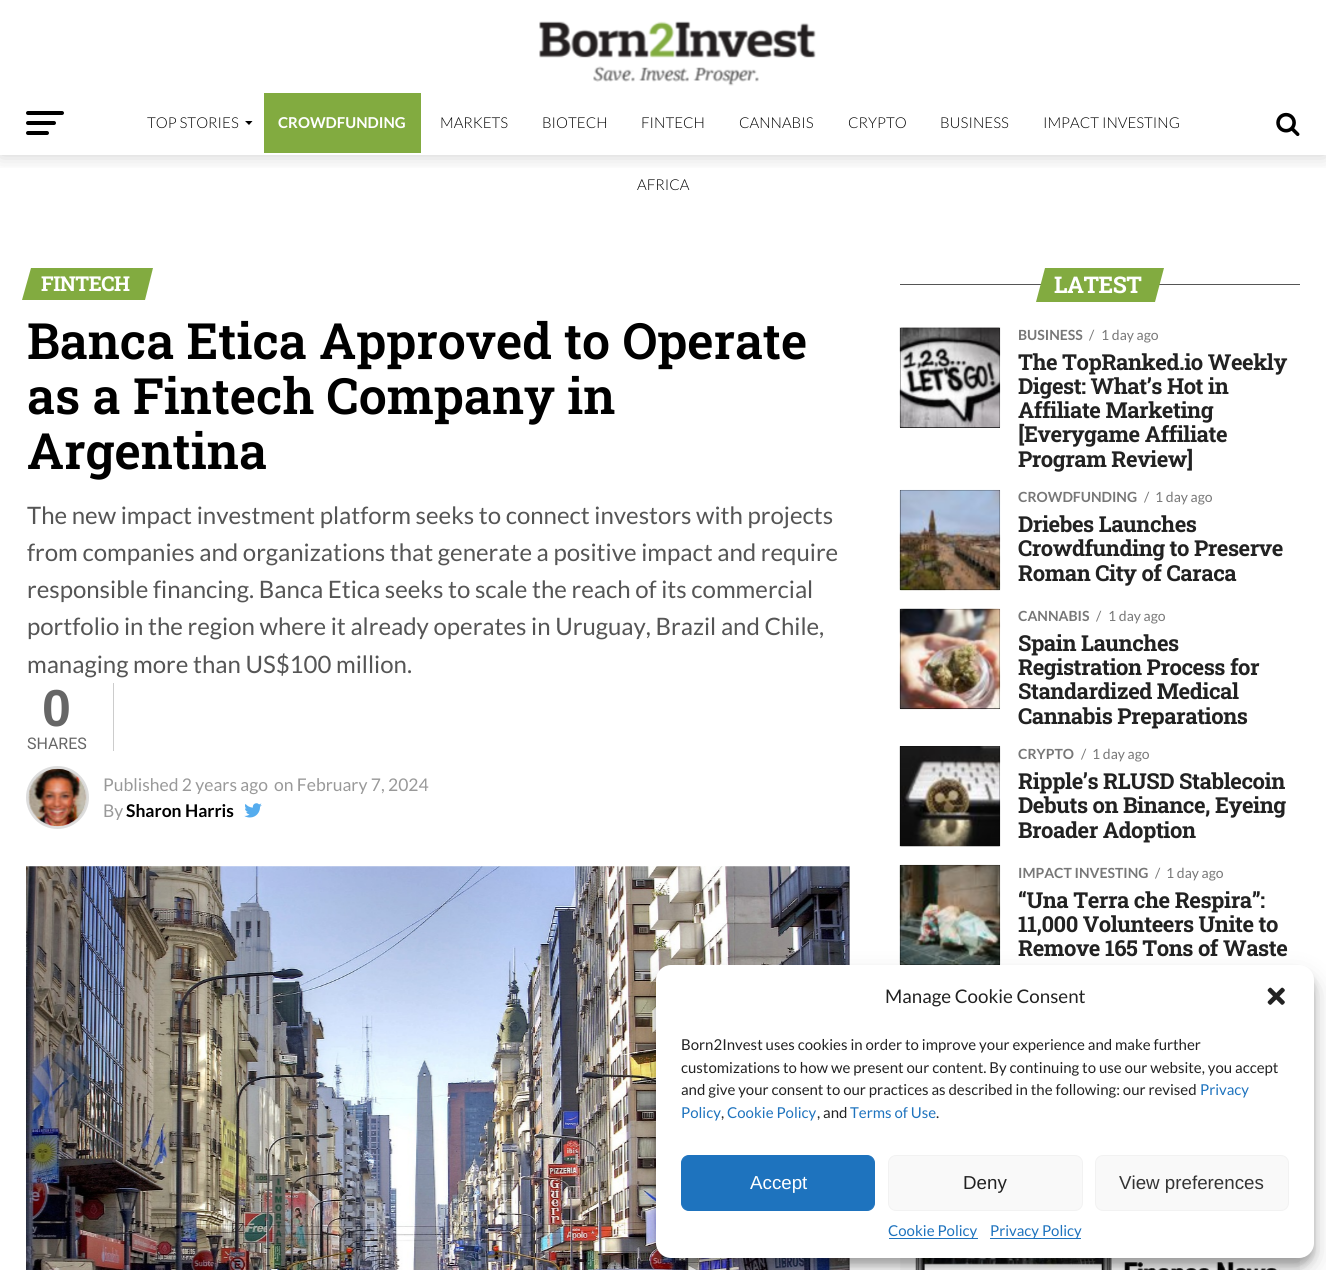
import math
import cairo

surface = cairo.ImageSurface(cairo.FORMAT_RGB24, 1326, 1270)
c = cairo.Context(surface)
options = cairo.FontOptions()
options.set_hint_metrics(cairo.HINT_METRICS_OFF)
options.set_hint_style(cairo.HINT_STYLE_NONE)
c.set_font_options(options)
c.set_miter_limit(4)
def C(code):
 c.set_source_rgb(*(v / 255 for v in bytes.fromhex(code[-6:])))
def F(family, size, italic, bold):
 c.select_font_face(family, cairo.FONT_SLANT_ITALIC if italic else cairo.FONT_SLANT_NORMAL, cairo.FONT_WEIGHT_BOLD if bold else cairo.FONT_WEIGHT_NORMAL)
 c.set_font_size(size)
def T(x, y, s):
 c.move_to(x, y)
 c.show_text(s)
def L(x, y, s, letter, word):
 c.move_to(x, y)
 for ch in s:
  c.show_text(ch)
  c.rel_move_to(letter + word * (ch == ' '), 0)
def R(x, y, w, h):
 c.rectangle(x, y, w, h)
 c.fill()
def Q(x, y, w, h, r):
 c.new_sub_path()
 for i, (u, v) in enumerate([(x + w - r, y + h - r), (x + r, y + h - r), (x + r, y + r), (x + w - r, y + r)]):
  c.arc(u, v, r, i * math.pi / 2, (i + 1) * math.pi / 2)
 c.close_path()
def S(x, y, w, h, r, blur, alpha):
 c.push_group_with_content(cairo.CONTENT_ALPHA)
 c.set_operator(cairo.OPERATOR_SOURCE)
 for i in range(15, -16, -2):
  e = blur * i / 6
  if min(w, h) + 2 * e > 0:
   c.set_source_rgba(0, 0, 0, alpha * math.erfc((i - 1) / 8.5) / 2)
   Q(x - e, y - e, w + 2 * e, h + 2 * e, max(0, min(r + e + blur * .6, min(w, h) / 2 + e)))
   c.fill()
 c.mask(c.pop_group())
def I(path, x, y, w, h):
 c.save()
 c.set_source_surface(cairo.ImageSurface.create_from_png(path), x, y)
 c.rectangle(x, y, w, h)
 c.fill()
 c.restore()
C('ffffff')
c.paint()
c.save()
c.rectangle(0,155,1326,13)
c.clip()
C('000000')
S(0,93,1326,62,0,10,.2)
c.restore()
C('ffffff')
R(0,77,1326,16)
I('1.png',539,21,277,65)
C('000000')
Q(26,111,38,4,2)
c.fill()
Q(26,121,30,4,2)
c.fill()
Q(26,131,23,4,2)
c.fill()
F('Lato Light',15,0,0)
T(147,128,'TOP STORIES')
c.new_path()
c.move_to(245,121)
c.line_to(252.5,121)
c.line_to(249,125)
c.close_path()
c.fill()
C('82ab40')
R(264,93,157,60)
F('Lato',15,0,1)
C('ffffff')
T(278,128,'CROWDFUNDING')
F('Lato Light',15,0,0)
C('000000')
T(440,128,'MARKETS')
T(542,128,'BIOTECH')
T(641,128,'FINTECH')
T(739,128,'CANNABIS')
T(848,128,'CRYPTO')
T(940,128,'BUSINESS')
T(1043,128,'IMPACT INVESTING')
T(637,190,'AFRICA')
I('2.png',1276,112,24,25)
C('82ab40')
c.new_path()
c.move_to(31,268)
c.line_to(153,268)
c.line_to(145,300)
c.line_to(22,300)
c.close_path()
c.fill()
F('Roboto Slab',20.5,0,1)
C('ffffff')
L(41,291,'FINTECH',-.5,0)
F('Roboto Slab SemiBold',50,0,0)
C('000000')
T(27,359,'Banca Etica Approved to Operate')
T(27,414,'as a Fintech Company in')
T(27,469,'Argentina')
F('Lato',24,0,0)
C('555555')
T(27,524,'The new impact investment platform seeks to connect investors with projects')
T(27,561,'from companies and organizations that generate a positive impact and require')
T(27,598,'responsible financing. Banca Etica seeks to scale the reach of its commercial')
T(27,635,'portfolio in the region where it already operates in Uruguay, Brazil and Chile,')
T(27,673,'managing more than US$100 million.')
C('cccccc')
R(113,683,1,68)
F('Liberation Sans',52,0,1)
C('666666')
T(42,726,'0')
F('Roboto',16,0,0)
T(27,749,'SHARES')
c.new_path()
c.arc(57.5,797.5,30,0,2 * math.pi)
C('dddddd')
c.set_line_width(3)
c.stroke()
I('3.png',28,768,59,59)
F('Lato',17.5,0,0)
C('999999')
T(103,791,'Published 2 years ago')
T(274,791,'on February 7, 2024')
T(103,817,'By')
F('Lato',17.5,0,1)
C('000000')
T(126,817,'Sharon Harris')
I('4.png',244,803,18,15)
I('5.png',26,866,824,404)
C('555555')
R(900,284,400,1)
C('82ab40')
c.new_path()
c.move_to(1045,268)
c.line_to(1164,268)
c.line_to(1155,302)
c.line_to(1036,302)
c.close_path()
c.fill()
F('Roboto Slab',23,0,1)
C('ffffff')
L(1054,293,'LATEST',-.5,0)
C('000000')
R(900,328,100,100)
I('6.png',899,327,102,101)
F('Lato',14,0,1)
C('777777')
T(1018,340,'BUSINESS')
F('Lato',14,0,0)
T(1089,340,'/')
T(1101,340,'1 day ago')
F('Roboto Slab',22,0,1)
C('222222')
L(1018,370,'The TopRanked.io Weekly',-.45,0)
L(1018,394,'Digest: What’s Hot in',-.45,0)
L(1018,418,'Affiliate Marketing',-.45,0)
L(1018,442,'[Everygame Affiliate',-.45,0)
L(1018,467,'Program Review]',-.45,0)
C('000000')
R(900,490,100,100)
I('7.png',899,489,102,102)
F('Lato',14,0,1)
C('777777')
T(1018,502,'CROWDFUNDING')
F('Lato',14,0,0)
T(1144,502,'/')
T(1155,502,'1 day ago')
F('Roboto Slab',22,0,1)
C('222222')
L(1018,532,'Driebes Launches',-.45,0)
L(1018,556,'Crowdfunding to Preserve',-.45,0)
L(1018,581,'Roman City of Caraca',-.45,0)
C('000000')
R(900,609,100,100)
I('8.png',899,608,102,102)
F('Lato',14,0,1)
C('777777')
T(1018,621,'CANNABIS')
F('Lato',14,0,0)
T(1096,621,'/')
T(1108,621,'1 day ago')
F('Roboto Slab',22,0,1)
C('222222')
L(1018,651,'Spain Launches',-.45,0)
L(1018,675,'Registration Process for',-.45,0)
L(1018,699,'Standardized Medical',-.45,0)
L(1018,724,'Cannabis Preparations',-.45,0)
C('000000')
R(900,746,100,100)
I('9.png',899,746,102,101)
F('Lato',14,0,1)
C('777777')
T(1018,759,'CRYPTO')
F('Lato',14,0,0)
T(1081,759,'/')
T(1092,759,'1 day ago')
F('Roboto Slab',22,0,1)
C('222222')
L(1018,789,'Ripple’s RLUSD Stablecoin',-.45,0)
L(1018,813,'Debuts on Binance, Eyeing',-.45,0)
L(1018,838,'Broader Adoption',-.45,0)
C('000000')
R(900,865,100,100)
I('10.png',899,864,102,101)
F('Lato',14,0,1)
C('777777')
T(1018,878,'IMPACT INVESTING')
F('Lato',14,0,0)
T(1155,878,'/')
T(1166,878,'1 day ago')
F('Roboto Slab',22,0,1)
C('222222')
L(1018,908,'“Una Terra che Respira”:',-.45,0)
L(1018,932,'11,000 Volunteers Unite to',-.45,0)
L(1018,956,'Remove 165 Tons of Waste',-.45,0)
I('11.png',900,1257,400,13)
C('000000')
S(656,973,658,292,15,4,.23)
S(656,978,658,292,15,12.5,.19)
C('ffffff')
Q(656,965,658,293,15)
c.fill()
F('Lato',18.75,0,0)
C('222222')
T(885,1003,'Manage Cookie Consent')
I('12.png',1267,987,18,18)
F('Lato',15,0,0)
T(681,1050,'Born2Invest uses cookies in order to improve your experience and make further')
T(681,1073,'customizations to how we present our content. By continuing to use our website, you accept')
T(681,1095,'and give your consent to our practices as described in the following: our revised')
C('1e73be')
T(1200,1095,'Privacy')
T(681,1118,'Policy')
C('222222')
T(721,1118,',')
C('1e73be')
T(727,1118,'Cookie Policy')
C('222222')
T(817,1118,', and')
C('1e73be')
T(850,1118,'Terms of Use')
C('222222')
T(936,1118,'.')
C('1e73be')
Q(681.5,1155.5,193,55,7.5)
c.fill_preserve()
c.set_line_width(1)
c.stroke()
F('Liberation Sans',18.75,0,0)
C('ffffff')
T(750,1189,'Accept')
C('f9f9f9')
Q(888.5,1155.5,194,55,7.5)
c.fill_preserve()
C('f2f2f2')
c.stroke()
C('222222')
T(963,1189,'Deny')
C('f9f9f9')
Q(1095.5,1155.5,193,55,7.5)
c.fill_preserve()
C('f2f2f2')
c.stroke()
C('333333')
T(1119,1189,'View preferences')
C('1e73be')
R(889,1238,89,1)
F('Lato',15,0,0)
T(888,1236,'Cookie Policy')
R(990,1238,91,1)
T(990,1236,'Privacy Policy')
surface.write_to_png('o.png')
